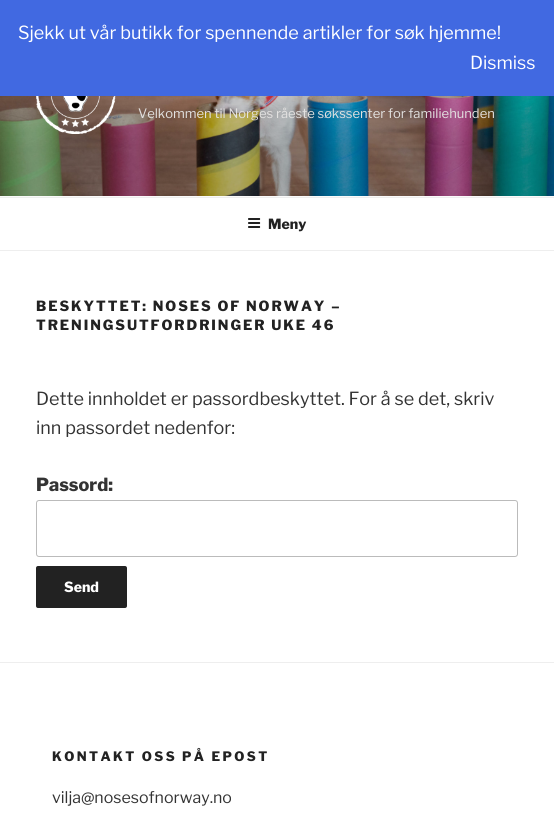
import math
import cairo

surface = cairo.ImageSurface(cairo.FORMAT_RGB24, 554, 832)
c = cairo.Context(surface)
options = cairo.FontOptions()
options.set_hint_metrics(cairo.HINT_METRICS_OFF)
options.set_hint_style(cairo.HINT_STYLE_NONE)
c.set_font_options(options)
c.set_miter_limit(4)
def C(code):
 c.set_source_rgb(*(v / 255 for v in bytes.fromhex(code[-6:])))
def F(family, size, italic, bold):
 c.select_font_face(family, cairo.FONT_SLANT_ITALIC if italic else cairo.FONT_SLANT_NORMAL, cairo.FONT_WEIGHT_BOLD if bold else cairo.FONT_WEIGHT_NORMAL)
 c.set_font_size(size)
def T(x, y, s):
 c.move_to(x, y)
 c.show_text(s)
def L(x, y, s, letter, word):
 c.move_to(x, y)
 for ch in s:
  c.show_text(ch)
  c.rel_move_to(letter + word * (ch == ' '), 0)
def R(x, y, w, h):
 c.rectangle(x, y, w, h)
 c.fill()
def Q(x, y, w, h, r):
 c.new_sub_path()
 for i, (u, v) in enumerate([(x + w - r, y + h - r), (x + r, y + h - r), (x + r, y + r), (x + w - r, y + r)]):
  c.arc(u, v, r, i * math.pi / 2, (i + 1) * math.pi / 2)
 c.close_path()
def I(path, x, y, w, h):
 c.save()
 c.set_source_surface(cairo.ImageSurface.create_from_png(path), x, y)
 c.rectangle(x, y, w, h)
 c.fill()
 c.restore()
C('ffffff')
c.paint()
C('4169e1')
R(0,0,554,96)
F('Libre Franklin',18,0,0)
C('ffffff')
T(18,39,'Sjekk ut vår butikk for spennende artikler for søk hjemme!')
T(470,69,'Dismiss')
C('fafafa')
R(0,196,554,1)
I('1.png',0,96,554,100)
I('2.png',36,96,80,38)
F('Libre Franklin',13,0,0)
C('e3e2e1')
T(138,118,'Velkommen til Norges råeste søkssenter for familiehunden')
C('eeeeee')
R(0,197,554,1)
R(0,250,554,1)
I('3.png',248,218,13,10)
F('Libre Franklin ExtraBold',14,0,0)
C('222222')
T(268,229,'Meny')
L(36,311,'BESKYTTET: NOSES OF NORWAY –',1.95,0)
L(36,330,'TRENINGSUTFORDRINGER UKE 46',1.95,0)
F('Libre Franklin',18,0,0)
C('333333')
T(36,405,'Dette innholdet er passordbeskyttet. For å se det, skriv')
T(36,434,'inn passordet nedenfor:')
F('Libre Franklin ExtraBold',18,0,0)
T(36,491,'Passord:')
Q(36.5,500.5,481,56,2.5)
C('bbbbbb')
c.set_line_width(1)
c.stroke()
C('222222')
Q(36,566,91,42,2)
c.fill()
F('Libre Franklin ExtraBold',14,0,0)
C('ffffff')
T(64,592,'Send')
C('eeeeee')
R(0,662,554,1)
F('Libre Franklin ExtraBold',13,0,0)
C('222222')
L(52,761,'KONTAKT OSS PÅ EPOST',2.4,0)
F('Libre Franklin',16,0,0)
C('333333')
T(52,803,'vilja@nosesofnorway.no')
surface.write_to_png('o.png')
